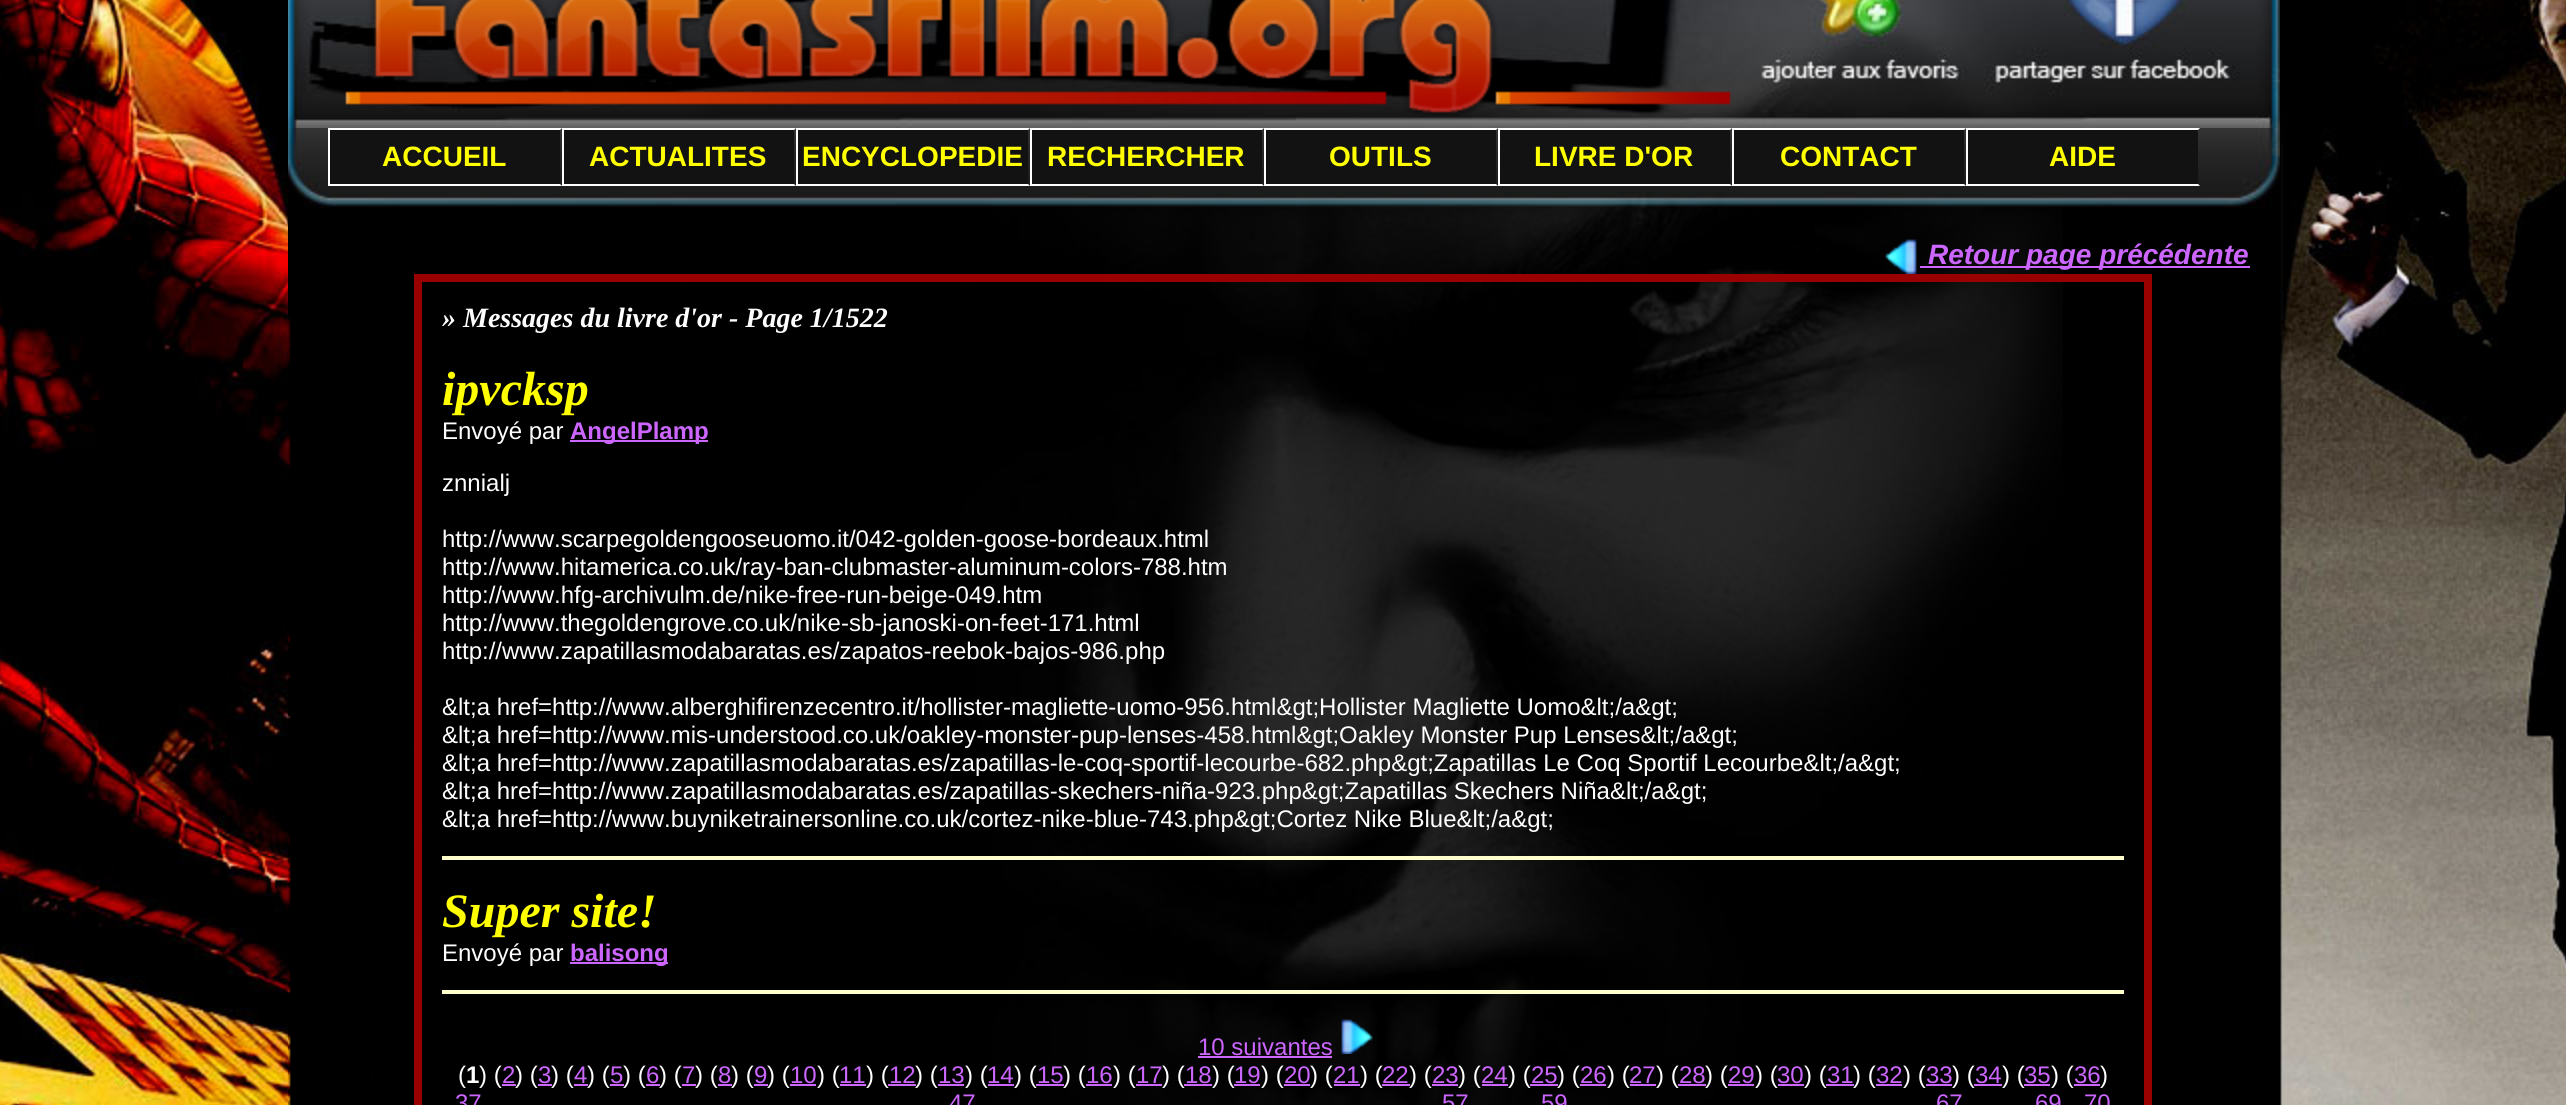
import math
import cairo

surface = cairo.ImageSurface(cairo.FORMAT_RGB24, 2566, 1105)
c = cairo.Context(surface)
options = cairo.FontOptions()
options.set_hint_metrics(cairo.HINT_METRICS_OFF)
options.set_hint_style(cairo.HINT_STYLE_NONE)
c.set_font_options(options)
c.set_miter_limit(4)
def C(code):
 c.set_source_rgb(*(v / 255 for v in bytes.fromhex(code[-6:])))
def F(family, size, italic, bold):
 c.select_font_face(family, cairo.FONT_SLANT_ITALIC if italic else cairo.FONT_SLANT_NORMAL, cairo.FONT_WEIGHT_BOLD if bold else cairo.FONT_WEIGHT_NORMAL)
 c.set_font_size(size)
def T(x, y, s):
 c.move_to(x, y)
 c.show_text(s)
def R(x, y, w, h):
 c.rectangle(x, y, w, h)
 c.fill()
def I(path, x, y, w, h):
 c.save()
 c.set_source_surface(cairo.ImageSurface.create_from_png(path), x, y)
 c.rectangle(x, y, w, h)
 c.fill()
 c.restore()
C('ffffff')
c.paint()
I('1.png',0,0,2566,1105)
I('2.png',288,0,1466,128)
I('3.png',1754,0,232,128)
I('4.png',1986,0,294,128)
I('5.png',288,128,1992,80)
C('ffffff')
c.new_path()
c.move_to(328,128)
c.line_to(562,128)
c.line_to(560,130)
c.line_to(330,130)
c.close_path()
c.fill()
c.new_path()
c.move_to(562,186)
c.line_to(328,186)
c.line_to(330,184)
c.line_to(560,184)
c.close_path()
c.fill()
R(328,128,2,58)
C('121212')
R(330,130,230,54)
F('Liberation Sans',28,0,1)
C('ffff00')
T(382,166,'ACCUEIL')
C('ffffff')
c.new_path()
c.move_to(562,128)
c.line_to(796,128)
c.line_to(794,130)
c.line_to(564,130)
c.close_path()
c.fill()
c.new_path()
c.move_to(796,186)
c.line_to(562,186)
c.line_to(564,184)
c.line_to(794,184)
c.close_path()
c.fill()
R(562,128,2,58)
C('121212')
R(564,130,230,54)
C('ffff00')
T(589,166,'ACTUALITES')
C('ffffff')
c.new_path()
c.move_to(796,128)
c.line_to(1030,128)
c.line_to(1028,130)
c.line_to(798,130)
c.close_path()
c.fill()
c.new_path()
c.move_to(1030,186)
c.line_to(796,186)
c.line_to(798,184)
c.line_to(1028,184)
c.close_path()
c.fill()
R(796,128,2,58)
C('121212')
R(798,130,230,54)
C('ffff00')
T(802,166,'ENCYCLOPEDIE')
C('ffffff')
c.new_path()
c.move_to(1030,128)
c.line_to(1264,128)
c.line_to(1262,130)
c.line_to(1032,130)
c.close_path()
c.fill()
c.new_path()
c.move_to(1264,186)
c.line_to(1030,186)
c.line_to(1032,184)
c.line_to(1262,184)
c.close_path()
c.fill()
R(1030,128,2,58)
C('121212')
R(1032,130,230,54)
C('ffff00')
T(1047,166,'RECHERCHER')
C('ffffff')
c.new_path()
c.move_to(1264,128)
c.line_to(1498,128)
c.line_to(1496,130)
c.line_to(1266,130)
c.close_path()
c.fill()
c.new_path()
c.move_to(1498,186)
c.line_to(1264,186)
c.line_to(1266,184)
c.line_to(1496,184)
c.close_path()
c.fill()
R(1264,128,2,58)
C('121212')
R(1266,130,230,54)
C('ffff00')
T(1329,166,'OUTILS')
C('ffffff')
c.new_path()
c.move_to(1498,128)
c.line_to(1732,128)
c.line_to(1730,130)
c.line_to(1500,130)
c.close_path()
c.fill()
c.new_path()
c.move_to(1732,186)
c.line_to(1498,186)
c.line_to(1500,184)
c.line_to(1730,184)
c.close_path()
c.fill()
R(1498,128,2,58)
C('121212')
R(1500,130,230,54)
C('ffff00')
T(1534,166,'LIVRE D\'OR')
C('ffffff')
c.new_path()
c.move_to(1732,128)
c.line_to(1966,128)
c.line_to(1964,130)
c.line_to(1734,130)
c.close_path()
c.fill()
c.new_path()
c.move_to(1966,186)
c.line_to(1732,186)
c.line_to(1734,184)
c.line_to(1964,184)
c.close_path()
c.fill()
R(1732,128,2,58)
C('121212')
R(1734,130,230,54)
C('ffff00')
T(1780,166,'CONTACT')
C('ffffff')
c.new_path()
c.move_to(1966,128)
c.line_to(2200,128)
c.line_to(2198,130)
c.line_to(1968,130)
c.close_path()
c.fill()
c.new_path()
c.move_to(2200,186)
c.line_to(1966,186)
c.line_to(1968,184)
c.line_to(2198,184)
c.close_path()
c.fill()
R(1966,128,2,58)
C('121212')
R(1968,130,230,54)
C('ffff00')
T(2049,166,'AIDE')
C('000000')
R(2275,286,5,819)
I('6.png',288,208,1775,897)
I('7.png',1885,239,32,35)
C('cc66ff')
R(1920,266,330,2)
F('Liberation Sans',28,1,1)
T(1928,264,'Retour page précédente')
c.rectangle(417,277,1732,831)
C('990000')
c.set_line_width(6)
c.stroke()
c.rectangle(421,281,1724,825)
c.set_line_width(2)
c.stroke()
F('Liberation Serif',28,1,1)
C('ffffff')
T(442,327,'» Messages du livre d\'or - Page 1/1522')
F('Liberation Serif',48,1,1)
C('ffff00')
T(442,405,'ipvcksp')
F('Liberation Sans',24,0,0)
C('ffffff')
T(442,439,'Envoyé par')
C('cc66ff')
R(570,440,138,2)
F('Liberation Sans',24,0,1)
T(570,439,'AngelPlamp')
F('Liberation Sans',24,0,0)
C('ffffff')
T(442,491,'znnialj')
T(442,547,'http://www.scarpegoldengooseuomo.it/042-golden-goose-bordeaux.html')
T(442,575,'http://www.hitamerica.co.uk/ray-ban-clubmaster-aluminum-colors-788.htm')
T(442,603,'http://www.hfg-archivulm.de/nike-free-run-beige-049.htm')
T(442,631,'http://www.thegoldengrove.co.uk/nike-sb-janoski-on-feet-171.html')
T(442,659,'http://www.zapatillasmodabaratas.es/zapatos-reebok-bajos-986.php')
T(442,715,'&lt;a href=http://www.alberghifirenzecentro.it/hollister-magliette-uomo-956.html&gt;Hollister Magliette Uomo&lt;/a&gt;')
T(442,743,'&lt;a href=http://www.mis-understood.co.uk/oakley-monster-pup-lenses-458.html&gt;Oakley Monster Pup Lenses&lt;/a&gt;')
T(442,771,'&lt;a href=http://www.zapatillasmodabaratas.es/zapatillas-le-coq-sportif-lecourbe-682.php&gt;Zapatillas Le Coq Sportif Lecourbe&lt;/a&gt;')
T(442,799,'&lt;a href=http://www.zapatillasmodabaratas.es/zapatillas-skechers-niña-923.php&gt;Zapatillas Skechers Niña&lt;/a&gt;')
T(442,827,'&lt;a href=http://www.buyniketrainersonline.co.uk/cortez-nike-blue-743.php&gt;Cortez Nike Blue&lt;/a&gt;')
C('ffffcc')
R(442,856,1682,4)
F('Liberation Serif',48,1,1)
C('ffff00')
T(442,927,'Super site!')
F('Liberation Sans',24,0,0)
C('ffffff')
T(442,961,'Envoyé par')
C('cc66ff')
R(570,962,98,2)
F('Liberation Sans',24,0,1)
T(570,961,'balisong')
C('ffffcc')
R(442,990,1682,4)
F('Liberation Sans',24,0,0)
C('cc66ff')
T(1198,1055,'10 suivantes')
R(1198,1056,134,2)
I('8.png',1341,1019,32,35)
C('ffffff')
T(458,1083,'(')
F('Liberation Sans',24,0,1)
T(466,1083,'1')
F('Liberation Sans',24,0,0)
T(479,1083,') (')
C('cc66ff')
T(502,1083,'2')
R(502,1084,14,2)
C('ffffff')
T(515,1083,') (')
C('cc66ff')
T(538,1083,'3')
R(538,1084,14,2)
C('ffffff')
T(551,1083,') (')
C('cc66ff')
T(574,1083,'4')
R(574,1084,14,2)
C('ffffff')
T(587,1083,') (')
C('cc66ff')
T(610,1083,'5')
R(610,1084,14,2)
C('ffffff')
T(623,1083,') (')
C('cc66ff')
T(646,1083,'6')
R(646,1084,14,2)
C('ffffff')
T(659,1083,') (')
C('cc66ff')
T(682,1083,'7')
R(682,1084,14,2)
C('ffffff')
T(695,1083,') (')
C('cc66ff')
T(718,1083,'8')
R(718,1084,14,2)
C('ffffff')
T(731,1083,') (')
C('cc66ff')
T(754,1083,'9')
R(754,1084,14,2)
C('ffffff')
T(767,1083,') (')
C('cc66ff')
T(790,1083,'10')
R(790,1084,26,2)
C('ffffff')
T(817,1083,') (')
C('cc66ff')
T(839,1083,'11')
R(840,1084,26,2)
C('ffffff')
T(866,1083,') (')
C('cc66ff')
T(889,1083,'12')
R(888,1084,28,2)
C('ffffff')
T(915,1083,') (')
C('cc66ff')
T(938,1083,'13')
R(938,1084,26,2)
C('ffffff')
T(965,1083,') (')
C('cc66ff')
T(987,1083,'14')
R(988,1084,26,2)
C('ffffff')
T(1014,1083,') (')
C('cc66ff')
T(1037,1083,'15')
R(1036,1084,28,2)
C('ffffff')
T(1063,1083,') (')
C('cc66ff')
T(1086,1083,'16')
R(1086,1084,26,2)
C('ffffff')
T(1113,1083,') (')
C('cc66ff')
T(1136,1083,'17')
R(1136,1084,26,2)
C('ffffff')
T(1162,1083,') (')
C('cc66ff')
T(1185,1083,'18')
R(1184,1084,28,2)
C('ffffff')
T(1212,1083,') (')
C('cc66ff')
T(1234,1083,'19')
R(1234,1084,26,2)
C('ffffff')
T(1261,1083,') (')
C('cc66ff')
T(1284,1083,'20')
R(1284,1084,26,2)
C('ffffff')
T(1310,1083,') (')
C('cc66ff')
T(1333,1083,'21')
R(1334,1084,26,2)
C('ffffff')
T(1360,1083,') (')
C('cc66ff')
T(1382,1083,'22')
R(1382,1084,28,2)
C('ffffff')
T(1409,1083,') (')
C('cc66ff')
T(1432,1083,'23')
R(1432,1084,26,2)
C('ffffff')
T(1458,1083,') (')
C('cc66ff')
T(1481,1083,'24')
R(1482,1084,26,2)
C('ffffff')
T(1508,1083,') (')
C('cc66ff')
T(1531,1083,'25')
R(1530,1084,28,2)
C('ffffff')
T(1557,1083,') (')
C('cc66ff')
T(1580,1083,'26')
R(1580,1084,26,2)
C('ffffff')
T(1607,1083,') (')
C('cc66ff')
T(1629,1083,'27')
R(1630,1084,26,2)
C('ffffff')
T(1656,1083,') (')
C('cc66ff')
T(1679,1083,'28')
R(1678,1084,28,2)
C('ffffff')
T(1705,1083,') (')
C('cc66ff')
T(1728,1083,'29')
R(1728,1084,26,2)
C('ffffff')
T(1755,1083,') (')
C('cc66ff')
T(1777,1083,'30')
R(1778,1084,26,2)
C('ffffff')
T(1804,1083,') (')
C('cc66ff')
T(1827,1083,'31')
R(1826,1084,28,2)
C('ffffff')
T(1853,1083,') (')
C('cc66ff')
T(1876,1083,'32')
R(1876,1084,26,2)
C('ffffff')
T(1903,1083,') (')
C('cc66ff')
T(1926,1083,'33')
R(1926,1084,26,2)
C('ffffff')
T(1952,1083,') (')
C('cc66ff')
T(1975,1083,'34')
R(1974,1084,28,2)
C('ffffff')
T(2002,1083,') (')
C('cc66ff')
T(2024,1083,'35')
R(2024,1084,26,2)
C('ffffff')
T(2051,1083,') (')
C('cc66ff')
T(2074,1083,'36')
R(2074,1084,26,2)
C('ffffff')
T(2100,1083,')')
C('cc66ff')
T(455,1111,'37')
T(949,1111,'47')
T(1442,1111,'57')
T(1541,1111,'59')
T(1936,1111,'67')
T(2035,1111,'69')
T(2084,1111,'70')
surface.write_to_png('o.png')
